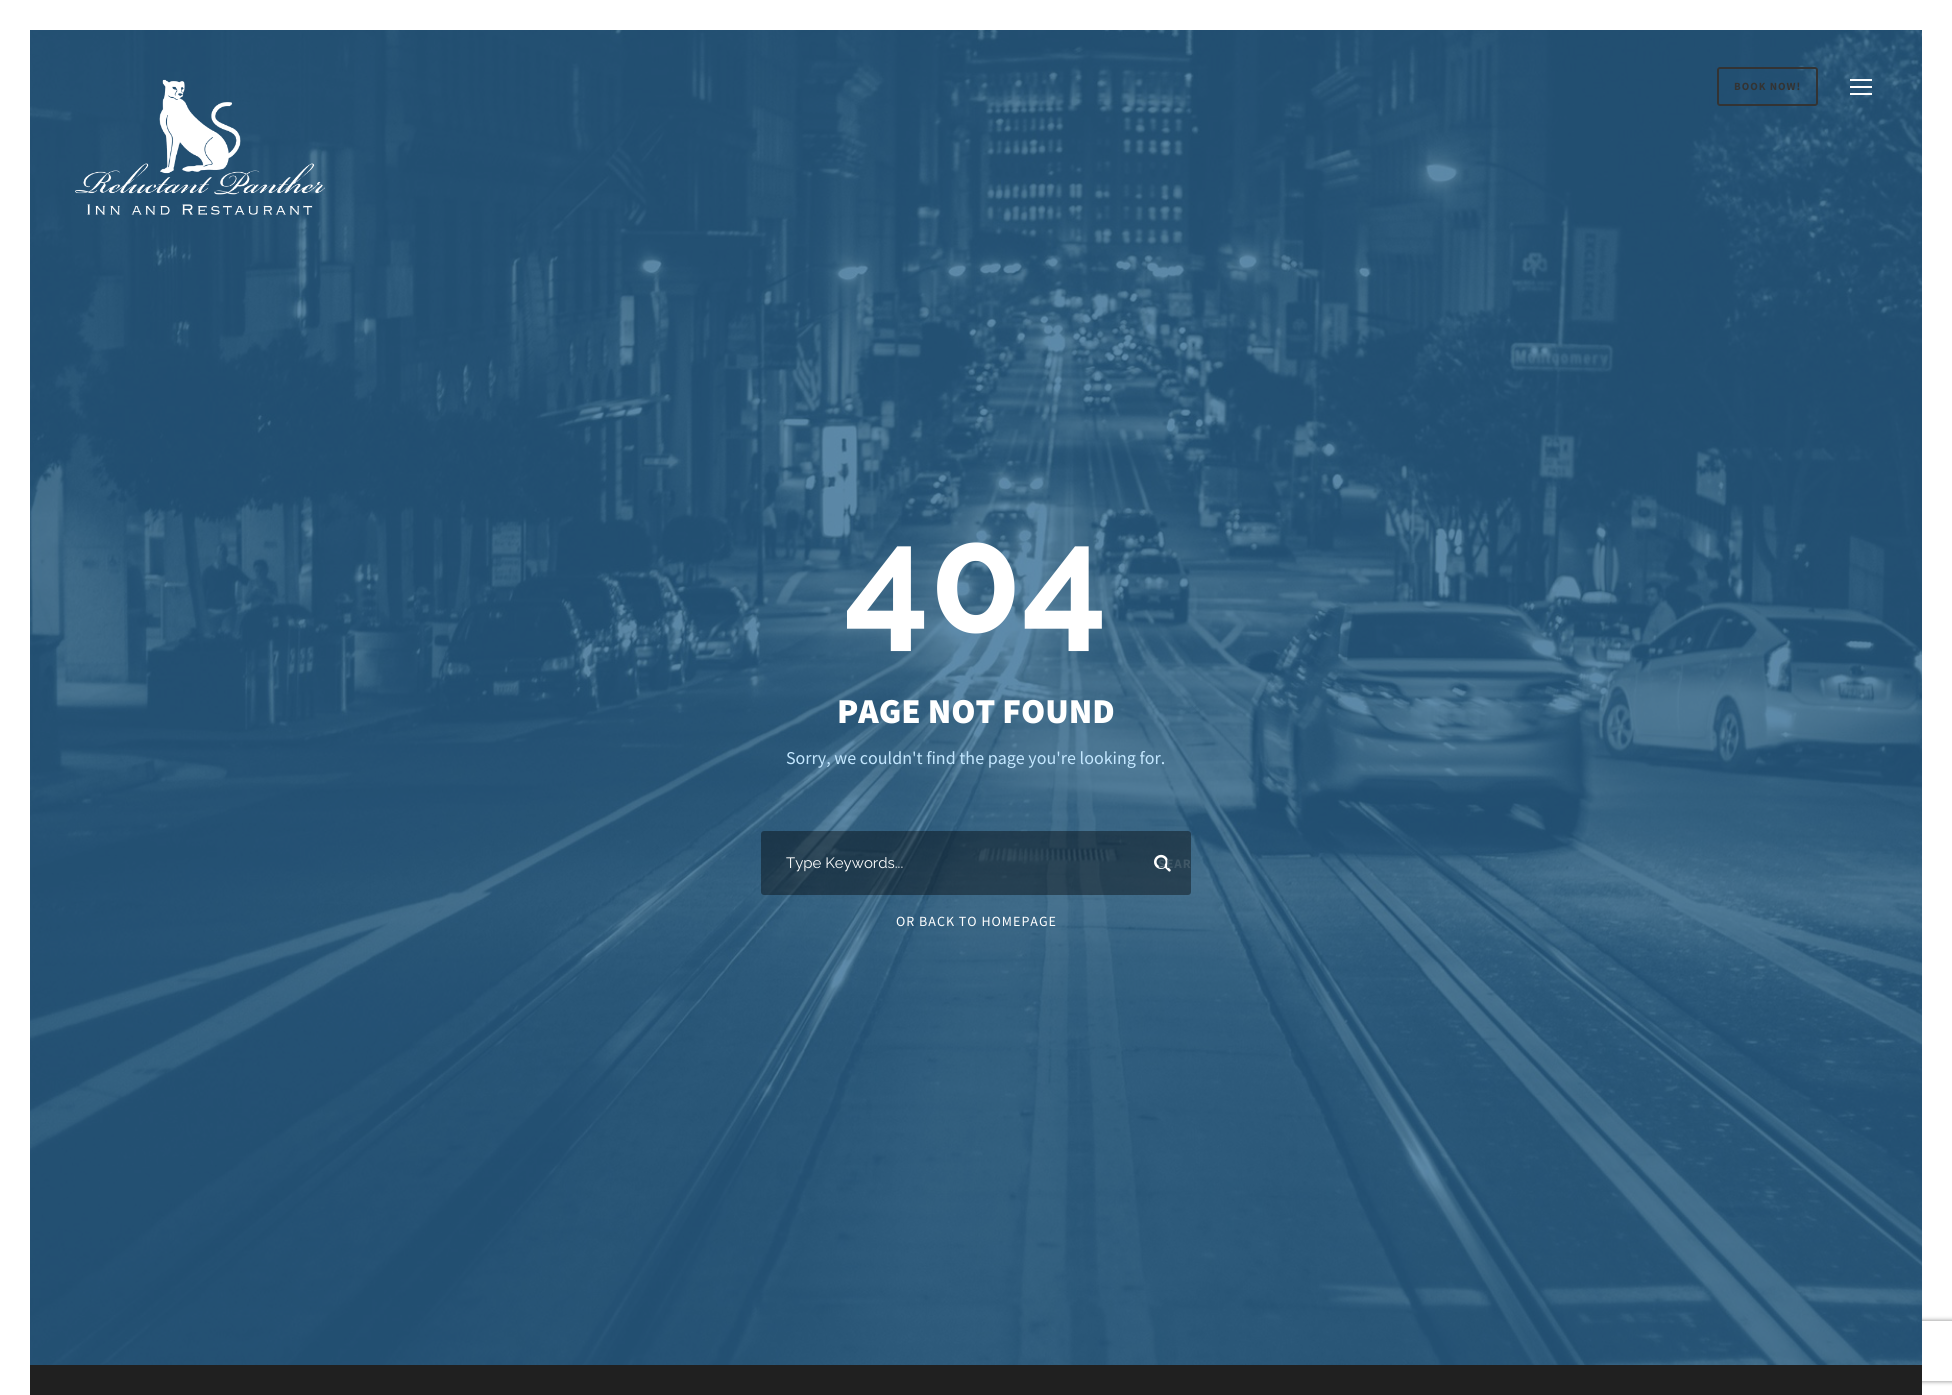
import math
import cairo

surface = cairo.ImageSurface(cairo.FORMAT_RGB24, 1952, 1395)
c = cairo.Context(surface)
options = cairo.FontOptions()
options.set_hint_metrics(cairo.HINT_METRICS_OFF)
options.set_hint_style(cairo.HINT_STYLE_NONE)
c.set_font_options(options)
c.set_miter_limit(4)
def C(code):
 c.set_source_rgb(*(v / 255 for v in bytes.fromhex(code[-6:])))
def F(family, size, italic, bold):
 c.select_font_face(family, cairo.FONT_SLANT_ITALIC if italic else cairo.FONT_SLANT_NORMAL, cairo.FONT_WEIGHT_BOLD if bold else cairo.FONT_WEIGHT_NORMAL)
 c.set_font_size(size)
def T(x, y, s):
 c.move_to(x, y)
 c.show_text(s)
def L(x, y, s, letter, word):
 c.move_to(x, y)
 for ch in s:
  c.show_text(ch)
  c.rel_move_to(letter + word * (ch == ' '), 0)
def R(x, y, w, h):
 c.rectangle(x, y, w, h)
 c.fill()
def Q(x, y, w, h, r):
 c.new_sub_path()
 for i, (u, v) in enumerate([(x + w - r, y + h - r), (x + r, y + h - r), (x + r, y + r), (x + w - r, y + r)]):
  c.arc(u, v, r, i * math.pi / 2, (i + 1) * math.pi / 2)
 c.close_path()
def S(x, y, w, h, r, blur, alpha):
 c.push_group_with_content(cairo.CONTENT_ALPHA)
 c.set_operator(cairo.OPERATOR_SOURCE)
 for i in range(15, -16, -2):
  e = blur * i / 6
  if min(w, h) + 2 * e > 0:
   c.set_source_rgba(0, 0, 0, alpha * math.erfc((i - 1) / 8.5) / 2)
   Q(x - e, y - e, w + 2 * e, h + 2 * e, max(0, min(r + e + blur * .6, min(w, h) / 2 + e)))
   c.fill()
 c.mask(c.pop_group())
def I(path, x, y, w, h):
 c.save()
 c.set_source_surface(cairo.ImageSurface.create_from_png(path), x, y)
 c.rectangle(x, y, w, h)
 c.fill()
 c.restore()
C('ffffff')
c.paint()
c.save()
c.set_fill_rule(cairo.FILL_RULE_EVEN_ODD)
c.new_path()
c.move_to(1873,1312)
c.line_to(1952,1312)
c.line_to(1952,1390)
c.line_to(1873,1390)
c.close_path()
c.move_to(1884,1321)
c.line_to(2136,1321)
c.curve_to(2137,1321,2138,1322,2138,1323)
c.line_to(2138,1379)
c.curve_to(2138,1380,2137,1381,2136,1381)
c.line_to(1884,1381)
c.curve_to(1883,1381,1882,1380,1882,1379)
c.line_to(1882,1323)
c.curve_to(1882,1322,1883,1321,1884,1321)
c.close_path()
c.clip()
C('808080')
S(1882,1321,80,60,2,2.5,1)
c.restore()
C('23618e')
R(30,30,1892,1335)
I('2.png',30,30,1892,1335)
I('1.png',75,79,250,136)
Q(1718,68,99,37,2)
C('333333')
c.stroke()
F('Source Sans Pro',11,0,1)
L(1734,90,'BOOK NOW!',1,0)
C('ffffff')
R(1850,79,22,2)
R(1850,86,22,2)
R(1850,93,22,2)
F('Raleway',150,0,1)
T(844,632,'404')
F('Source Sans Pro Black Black',35,0,0)
T(837,723,'PAGE NOT FOUND')
F('Source Sans Pro',18,0,0)
C('c3e7ff')
T(786,764,'Sorry, we couldn\'t find the page you\'re looking for.')
c.set_source_rgba(0,0,0,0.4)
Q(761,831,430,64,3)
c.fill()
F('Raleway',15,0,0)
C('ffffff')
T(786,868,'Type Keywords...')
I('3.png',1154,854,17,18)
F('Source Sans Pro',13,0,1)
C('3f5766')
L(1158,868,'SEAR',1,0)
F('Source Sans Pro',14,0,0)
C('ffffff')
L(896,926,'OR BACK TO HOMEPAGE',1,0)
C('202020')
R(30,1365,1892,30)
surface.write_to_png('o.png')
